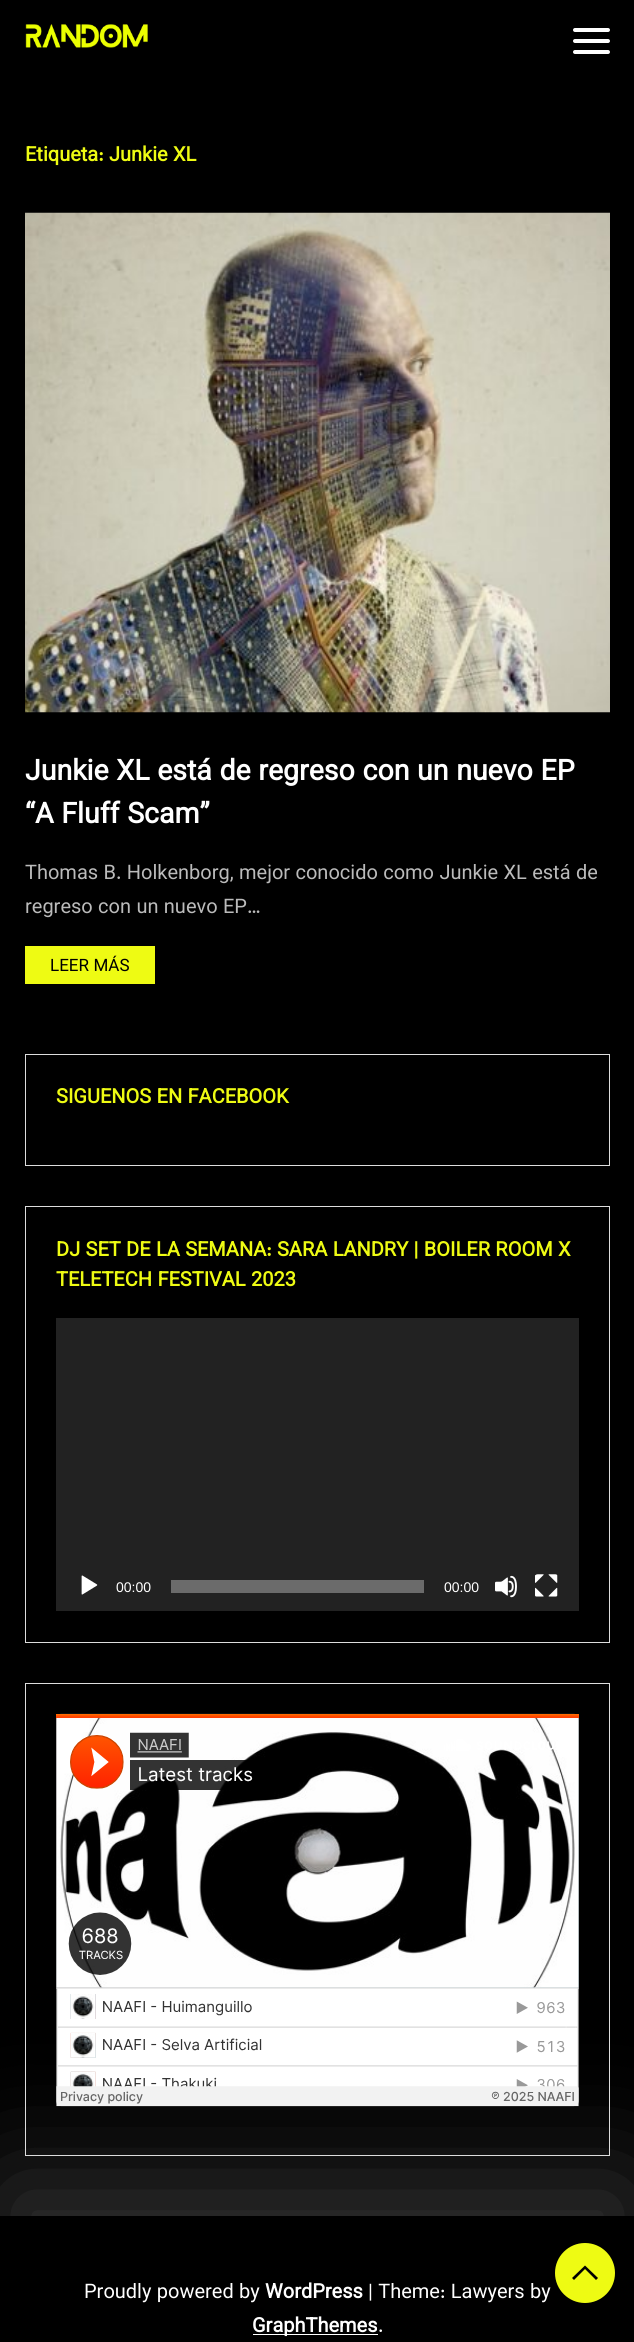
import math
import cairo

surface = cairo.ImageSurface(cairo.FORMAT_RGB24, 634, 2342)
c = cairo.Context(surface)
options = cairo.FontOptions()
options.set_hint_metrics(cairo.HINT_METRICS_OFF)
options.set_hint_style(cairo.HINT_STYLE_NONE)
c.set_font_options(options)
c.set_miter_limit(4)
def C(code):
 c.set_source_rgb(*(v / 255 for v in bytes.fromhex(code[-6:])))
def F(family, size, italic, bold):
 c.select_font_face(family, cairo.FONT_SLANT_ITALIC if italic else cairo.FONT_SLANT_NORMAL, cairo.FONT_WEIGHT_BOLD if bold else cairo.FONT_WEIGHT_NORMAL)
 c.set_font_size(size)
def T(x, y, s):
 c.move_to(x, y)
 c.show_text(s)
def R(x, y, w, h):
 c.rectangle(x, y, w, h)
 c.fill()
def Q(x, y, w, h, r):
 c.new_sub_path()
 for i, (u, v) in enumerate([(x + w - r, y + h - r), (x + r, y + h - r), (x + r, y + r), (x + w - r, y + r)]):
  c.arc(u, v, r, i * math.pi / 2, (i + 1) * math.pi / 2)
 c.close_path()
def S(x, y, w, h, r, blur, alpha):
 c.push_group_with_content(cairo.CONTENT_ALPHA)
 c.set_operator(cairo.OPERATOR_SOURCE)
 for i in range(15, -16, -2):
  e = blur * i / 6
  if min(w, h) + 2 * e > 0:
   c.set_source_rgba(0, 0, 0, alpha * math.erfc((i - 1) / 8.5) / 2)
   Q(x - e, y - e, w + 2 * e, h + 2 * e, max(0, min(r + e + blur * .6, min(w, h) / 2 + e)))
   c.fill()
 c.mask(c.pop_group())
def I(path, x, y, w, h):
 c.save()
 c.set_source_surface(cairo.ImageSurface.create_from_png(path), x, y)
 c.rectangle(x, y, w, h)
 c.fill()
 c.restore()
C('000000')
c.paint()
I('1.png',25,24,123,24)
C('ffffff')
Q(573,28,37,4,2)
c.fill()
Q(573,39,37,4,2)
c.fill()
Q(573,50,37,4,2)
c.fill()
F('Vazirmatn',20,0,1)
C('eefb13')
T(25,161,'Etiqueta: Junkie XL')
I('2.png',25,212,585,501)
F('Vazirmatn',28.5,0,1)
C('ffffff')
T(25,780,'Junkie XL está de regreso con un nuevo EP')
T(25,823,'“A Fluff Scam”')
F('Vazirmatn',20,0,0)
C('bbbbbb')
T(25,879,'Thomas B. Holkenborg, mejor conocido como Junkie XL está de')
T(25,913,'regreso con un nuevo EP…')
C('eefb13')
R(25,946,130,38)
F('Vazirmatn',17,0,0)
C('000000')
T(50,971,'LEER MÁS')
c.rectangle(25.5,1054.5,584,111)
C('dddddd')
c.set_line_width(1)
c.stroke()
F('Vazirmatn',20,0,1)
C('eefb13')
T(56,1103,'SIGUENOS EN FACEBOOK')
c.rectangle(25.5,1206.5,584,436)
C('dddddd')
c.stroke()
C('eefb13')
T(56,1256,'DJ SET DE LA SEMANA: SARA LANDRY | BOILER ROOM X')
T(56,1286,'TELETECH FESTIVAL 2023')
C('222222')
R(56,1318,523,293)
I('3.png',81,1575,17,20)
F('Liberation Sans',14,0,0)
C('ffffff')
T(116,1592,'00:00')
C('6b6b6b')
R(171,1580,253,13)
C('ffffff')
T(444,1592,'00:00')
I('4.png',495,1575,22,23)
I('5.png',535,1574,23,23)
C('ffffff')
S(0,2179,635,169,0,62.5,.2)
c.rectangle(25.5,1683.5,584,472)
C('dddddd')
c.stroke()
I('6.png',56,1713,523,394)
C('000000')
R(0,2216,634,126)
C('eefb13')
c.arc(585,2273,30,0,2 * math.pi)
c.fill()
C('000000')
c.new_path()
c.move_to(598,2278)
c.line_to(596,2280)
c.line_to(585,2269)
c.line_to(574,2280)
c.line_to(572,2278)
c.line_to(585,2265.5)
c.line_to(598,2278)
c.fill()
F('Vazirmatn',20,0,0)
C('ffffff')
T(84,2298,'Proudly powered by')
F('Vazirmatn',20,0,1)
T(265,2298,'WordPress')
F('Vazirmatn',20,0,0)
T(368,2298,'| Theme: Lawyers by')
R(253,2334,125,1)
F('Vazirmatn',20,0,1)
T(252,2332,'GraphThemes')
F('Vazirmatn',20,0,0)
T(378,2332,'.')
surface.write_to_png('o.png')
